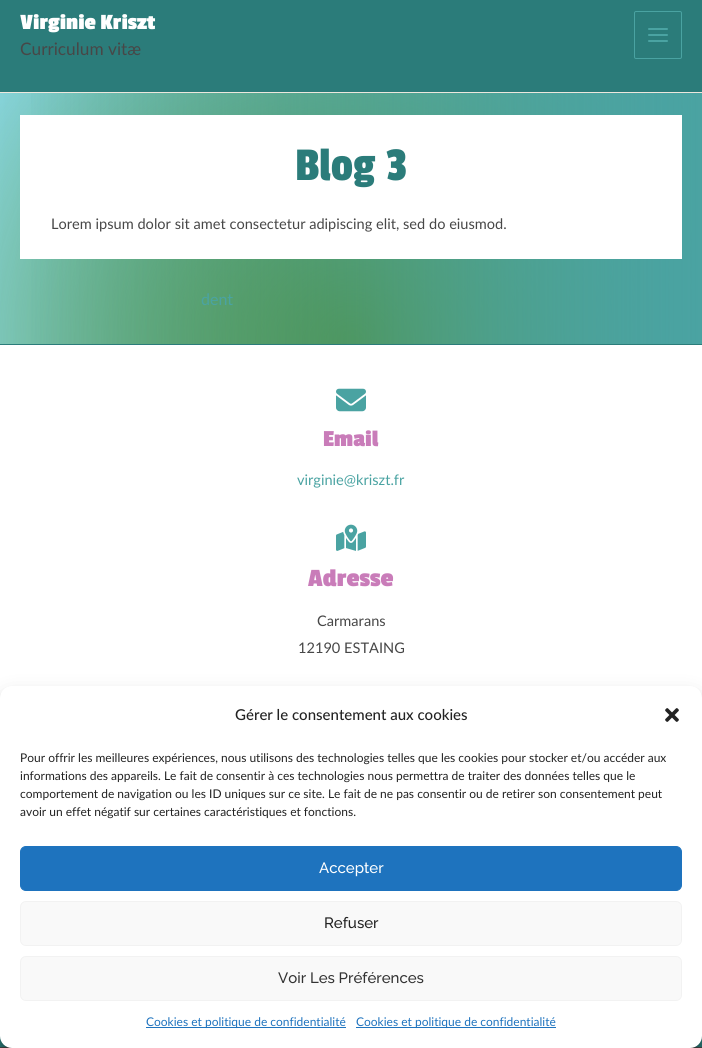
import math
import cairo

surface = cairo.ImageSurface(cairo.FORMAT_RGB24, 702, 1048)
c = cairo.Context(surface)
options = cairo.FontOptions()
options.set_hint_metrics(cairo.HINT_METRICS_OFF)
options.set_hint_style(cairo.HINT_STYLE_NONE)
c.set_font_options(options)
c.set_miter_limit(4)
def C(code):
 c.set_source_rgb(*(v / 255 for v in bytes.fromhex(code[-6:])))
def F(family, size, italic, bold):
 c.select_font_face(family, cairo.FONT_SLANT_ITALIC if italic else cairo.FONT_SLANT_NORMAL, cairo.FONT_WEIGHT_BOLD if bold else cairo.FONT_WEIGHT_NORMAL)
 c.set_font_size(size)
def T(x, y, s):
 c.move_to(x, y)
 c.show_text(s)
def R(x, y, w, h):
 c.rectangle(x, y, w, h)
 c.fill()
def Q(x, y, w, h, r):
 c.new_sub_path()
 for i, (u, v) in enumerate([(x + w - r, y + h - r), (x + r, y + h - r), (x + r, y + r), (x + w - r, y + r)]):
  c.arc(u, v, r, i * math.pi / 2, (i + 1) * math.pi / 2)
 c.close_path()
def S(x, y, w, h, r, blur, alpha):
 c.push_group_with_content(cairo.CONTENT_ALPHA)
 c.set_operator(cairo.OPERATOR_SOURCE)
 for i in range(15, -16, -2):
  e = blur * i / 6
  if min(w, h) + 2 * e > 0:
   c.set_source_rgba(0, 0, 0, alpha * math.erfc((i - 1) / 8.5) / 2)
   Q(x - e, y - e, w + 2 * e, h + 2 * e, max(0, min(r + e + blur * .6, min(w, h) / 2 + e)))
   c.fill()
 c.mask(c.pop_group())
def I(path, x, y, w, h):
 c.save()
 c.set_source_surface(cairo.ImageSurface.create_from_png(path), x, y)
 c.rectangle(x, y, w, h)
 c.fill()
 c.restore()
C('ffffff')
c.paint()
gradient = cairo.LinearGradient(-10,566,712,579)
gradient.add_color_stop_rgba(0,0.525,0.827,0.851,1)
gradient.add_color_stop_rgba(.99,0.29,0.639,0.635,1)
c.set_source(gradient)
R(0,93,698,251)
C('2b7c7a')
R(0,0,702,92)
C('ede7dd')
R(0,92,702,1)
F('Passion One',22.75,0,1)
C('ffffff')
T(20,29,'Virginie Kriszt')
F('Lato',17.25,0,0)
C('474747')
T(20,55,'Curriculum vitæ')
Q(634.5,11.5,47,47,1.5)
C('4aa3a2')
c.set_line_width(1)
c.stroke()
I('1.png',648,28,20,14)
gradient = cairo.RadialGradient(351,344,0,351,344,432)
gradient.add_color_stop_rgba(.02,0.318,0.549,0.153,1)
gradient.add_color_stop_rgba(1,0.318,0.549,0.153,0)
c.set_source(gradient)
R(0,93,698,251)
gradient = cairo.LinearGradient(0,219,702,218)
gradient.add_color_stop_rgba(0,0.29,0.639,0.635,0)
gradient.add_color_stop_rgba(1,0.29,0.639,0.635,1)
c.set_source(gradient)
R(31,93,671,251)
C('ffffff')
R(20,115,662,144)
F('Passion One',49,0,0)
C('2b7c7a')
T(295,180,'Blog 3')
F('Lato',14.6,0,0)
C('474747')
T(51,229,'Lorem ipsum dolor sit amet consectetur adipiscing elit, sed do eiusmod.')
F('Lato',16,0,0)
C('4aa3a2')
T(201,305,'dent')
C('2b7c7a')
R(0,344,702,703)
C('ffffff')
R(0,345,702,353)
I('2.png',336,388,30,24)
F('Passion One',24,0,1)
C('c97cb9')
T(323,446,'Email')
F('Lato',14.6,0,0)
C('4aa3a2')
T(297,485,'virginie@kriszt.fr')
I('3.png',336,524,30,27)
F('Passion One',26,0,1)
C('c97cb9')
T(308,586,'Adresse')
F('Lato',14.6,0,0)
C('474747')
T(317,626,'Carmarans')
T(298,653,'12190 ESTAING')
R(0,1047,702,1)
C('000000')
S(0,692,702,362,12,3,.23)
S(0,696,702,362,12,10,.19)
C('ffffff')
Q(0,686,702,362,12)
c.fill()
F('Lato Medium',15,0,0)
C('222222')
T(235,720,'Gérer le consentement aux cookies')
I('4.png',665,708,14,14)
F('Lato',12,0,0)
T(20,762,'Pour offrir les meilleures expériences, nous utilisons des technologies telles que les cookies pour stocker et/ou accéder aux')
T(20,780,'informations des appareils. Le fait de consentir à ces technologies nous permettra de traiter des données telles que le')
T(20,798,'comportement de navigation ou les ID uniques sur ce site. Le fait de ne pas consentir ou de retirer son consentement peut')
T(20,816,'avoir un effet négatif sur certaines caractéristiques et fonctions.')
C('1e73be')
Q(20.5,846.5,661,44,5.5)
c.fill_preserve()
c.stroke()
F('Raleway Medium',15,0,0)
C('ffffff')
T(319,873,'Accepter')
C('f9f9f9')
Q(20.5,901.5,661,44,5.5)
c.fill_preserve()
C('f2f2f2')
c.stroke()
C('222222')
T(324,928,'Refuser')
C('f9f9f9')
Q(20.5,956.5,661,44,5.5)
c.fill_preserve()
C('f2f2f2')
c.stroke()
C('333333')
T(278,983,'Voir Les Préférences')
C('1e73be')
R(146,1027,200,1)
F('Lato',12,0,0)
T(146,1026,'Cookies et politique de confidentialité')
R(356,1027,200,1)
T(356,1026,'Cookies et politique de confidentialité')
surface.write_to_png('o.png')
